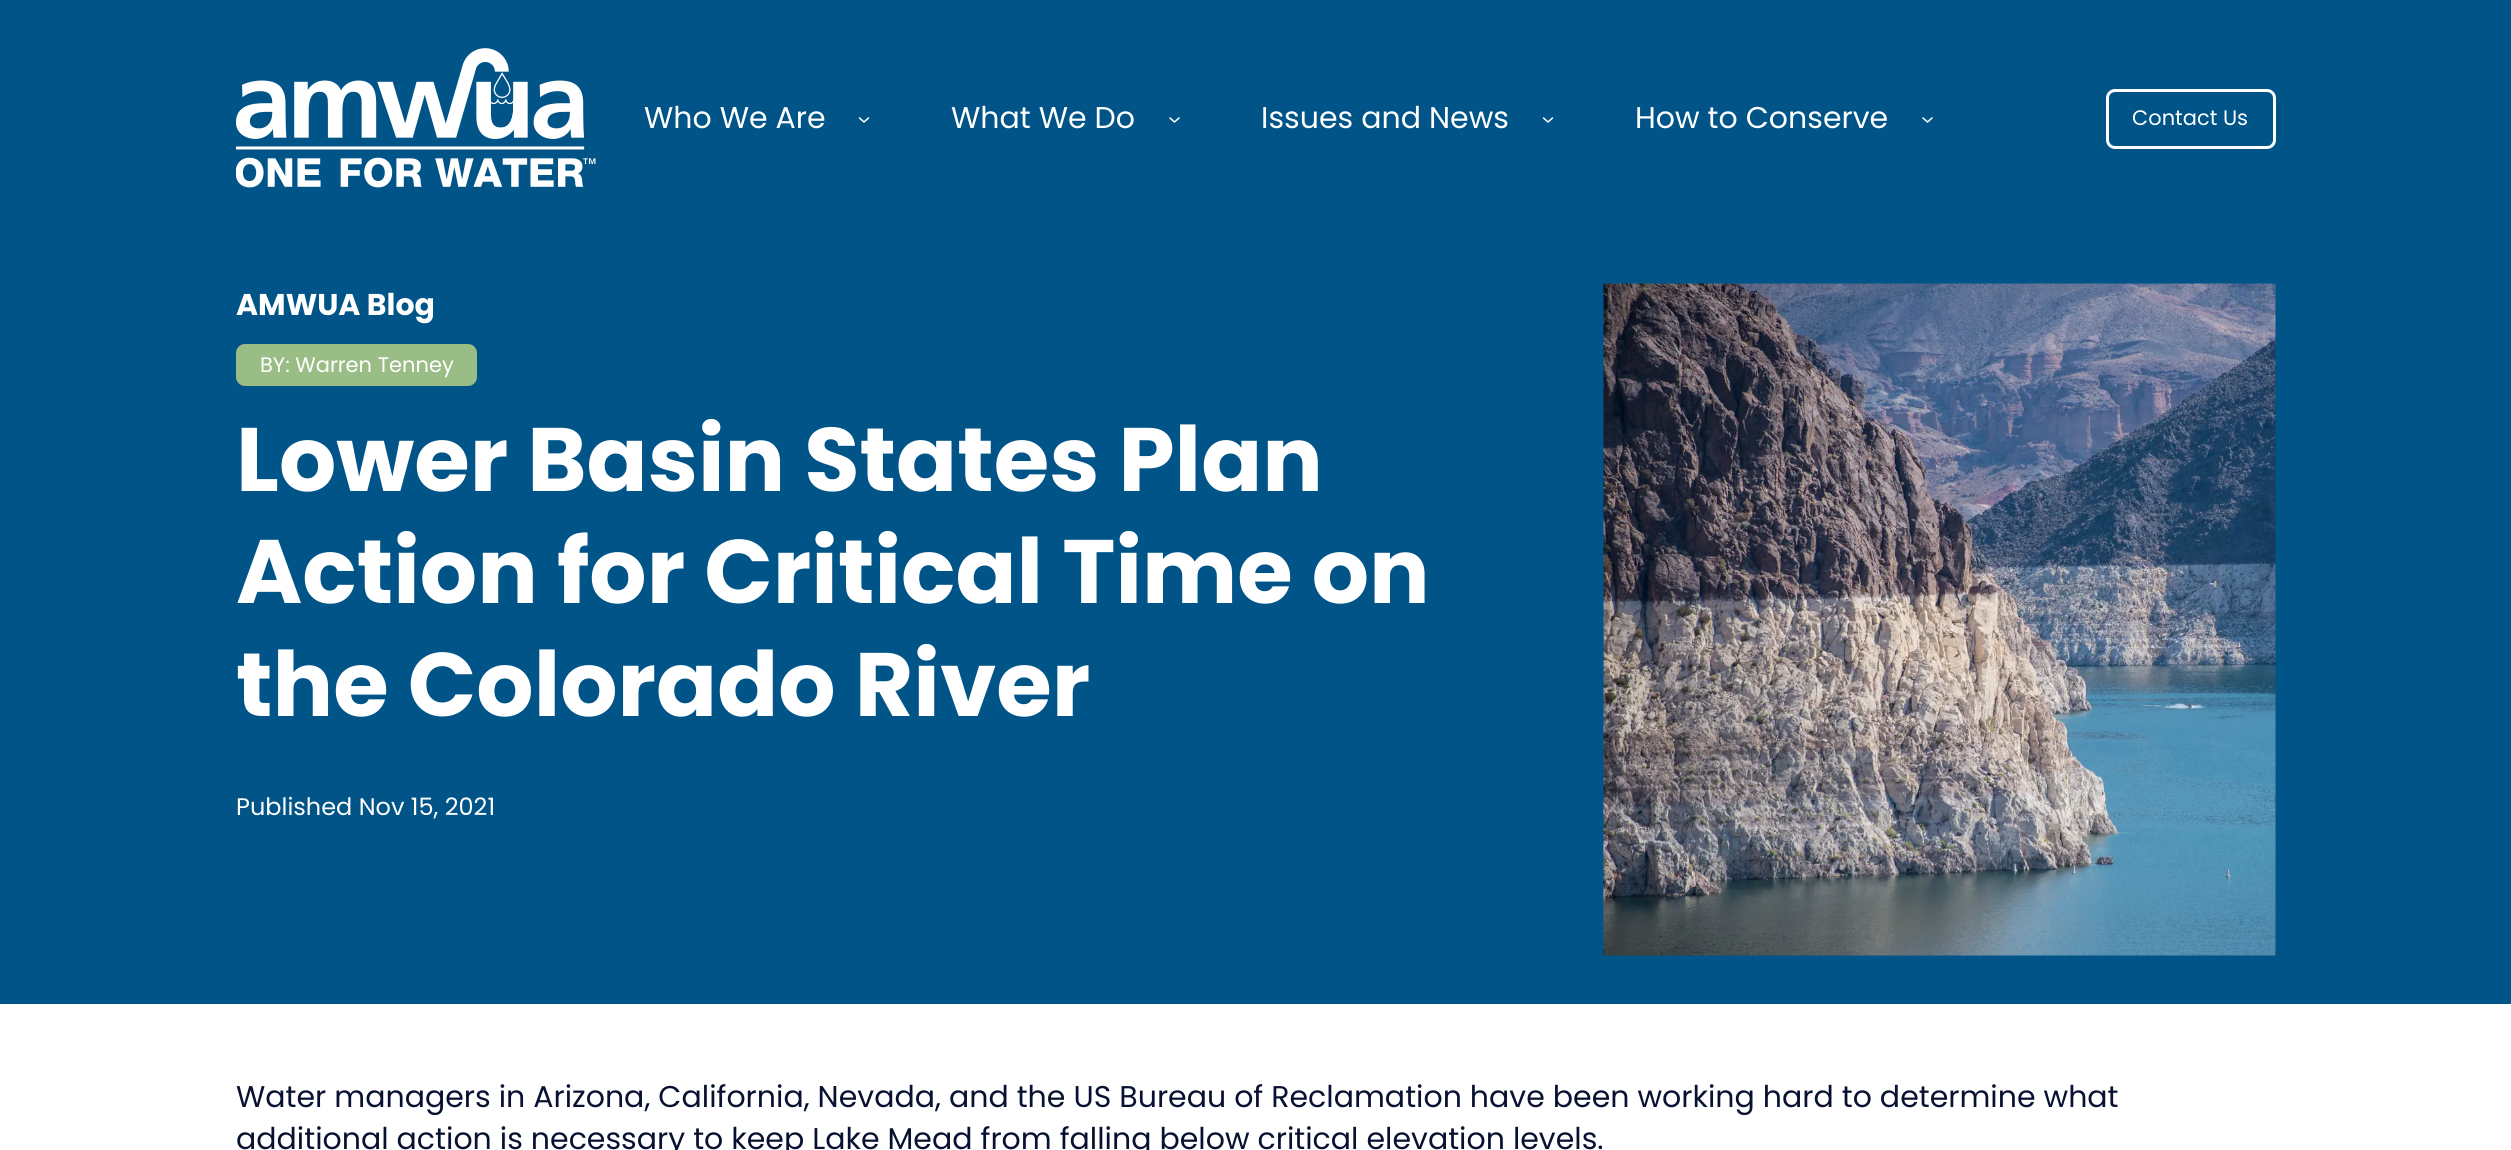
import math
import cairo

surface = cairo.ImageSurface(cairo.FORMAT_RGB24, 2511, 1150)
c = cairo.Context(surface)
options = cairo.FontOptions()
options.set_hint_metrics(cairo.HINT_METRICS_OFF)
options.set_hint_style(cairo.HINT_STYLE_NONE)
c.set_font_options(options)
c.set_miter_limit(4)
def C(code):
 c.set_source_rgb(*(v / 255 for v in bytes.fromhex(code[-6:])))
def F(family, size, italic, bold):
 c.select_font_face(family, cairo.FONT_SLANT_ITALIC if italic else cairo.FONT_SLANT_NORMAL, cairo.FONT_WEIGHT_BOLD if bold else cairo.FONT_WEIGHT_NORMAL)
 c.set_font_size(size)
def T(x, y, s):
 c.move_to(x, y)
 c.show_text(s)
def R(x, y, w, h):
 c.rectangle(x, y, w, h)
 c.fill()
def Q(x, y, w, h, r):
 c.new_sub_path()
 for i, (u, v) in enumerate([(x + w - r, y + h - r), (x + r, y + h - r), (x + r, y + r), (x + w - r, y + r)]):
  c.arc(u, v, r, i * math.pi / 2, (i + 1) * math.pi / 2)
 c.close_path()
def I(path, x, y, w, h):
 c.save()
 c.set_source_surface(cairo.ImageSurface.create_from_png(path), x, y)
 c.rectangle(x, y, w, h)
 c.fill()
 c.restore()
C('ffffff')
c.paint()
C('005487')
R(0,0,2511,1004)
I('1.png',236,48,360,140)
F('Poppins',30,0,0)
C('ffffff')
T(644,128,'Who We Are')
c.new_path()
c.move_to(859.5,118)
c.line_to(864,122)
c.line_to(868.5,118)
c.set_line_width(1.5)
c.set_line_cap(cairo.LINE_CAP_ROUND)
c.set_line_join(cairo.LINE_JOIN_ROUND)
c.stroke()
T(951,128,'What We Do')
c.new_path()
c.move_to(1170,118)
c.line_to(1174.5,122)
c.line_to(1179,118)
c.stroke()
T(1261,128,'Issues and News')
c.new_path()
c.move_to(1543.5,118)
c.line_to(1548,122)
c.line_to(1552.5,118)
c.stroke()
T(1635,128,'How to Conserve')
c.new_path()
c.move_to(1923,118)
c.line_to(1927.5,122)
c.line_to(1932,118)
c.stroke()
Q(2107.5,90.5,167,57,7.5)
c.set_line_width(3)
c.set_line_cap(cairo.LINE_CAP_BUTT)
c.set_line_join(cairo.LINE_JOIN_MITER)
c.stroke()
F('Poppins',21,0,0)
T(2132,125,'Contact Us')
F('Poppins',30,0,1)
T(236,315,'AMWUA Blog')
C('9abd86')
Q(236,344,241,42,9)
c.fill()
F('Poppins',21,0,0)
C('ffffff')
T(260,372,'BY: Warren Tenney')
F('Poppins',90,0,1)
T(236,491,'Lower Basin States Plan')
T(236,603,'Action for Critical Time on')
T(236,716,'the Colorado River')
F('Poppins',24,0,0)
T(236,815,'Published Nov 15, 2021')
I('2.png',1603,283,673,673)
F('Poppins',30,0,0)
C('081131')
T(236,1107,'Water managers in Arizona, California, Nevada, and the US Bureau of Reclamation have been working hard to determine what')
T(236,1149,'additional action is necessary to keep Lake Mead from falling below critical elevation levels.')
surface.write_to_png('o.png')
